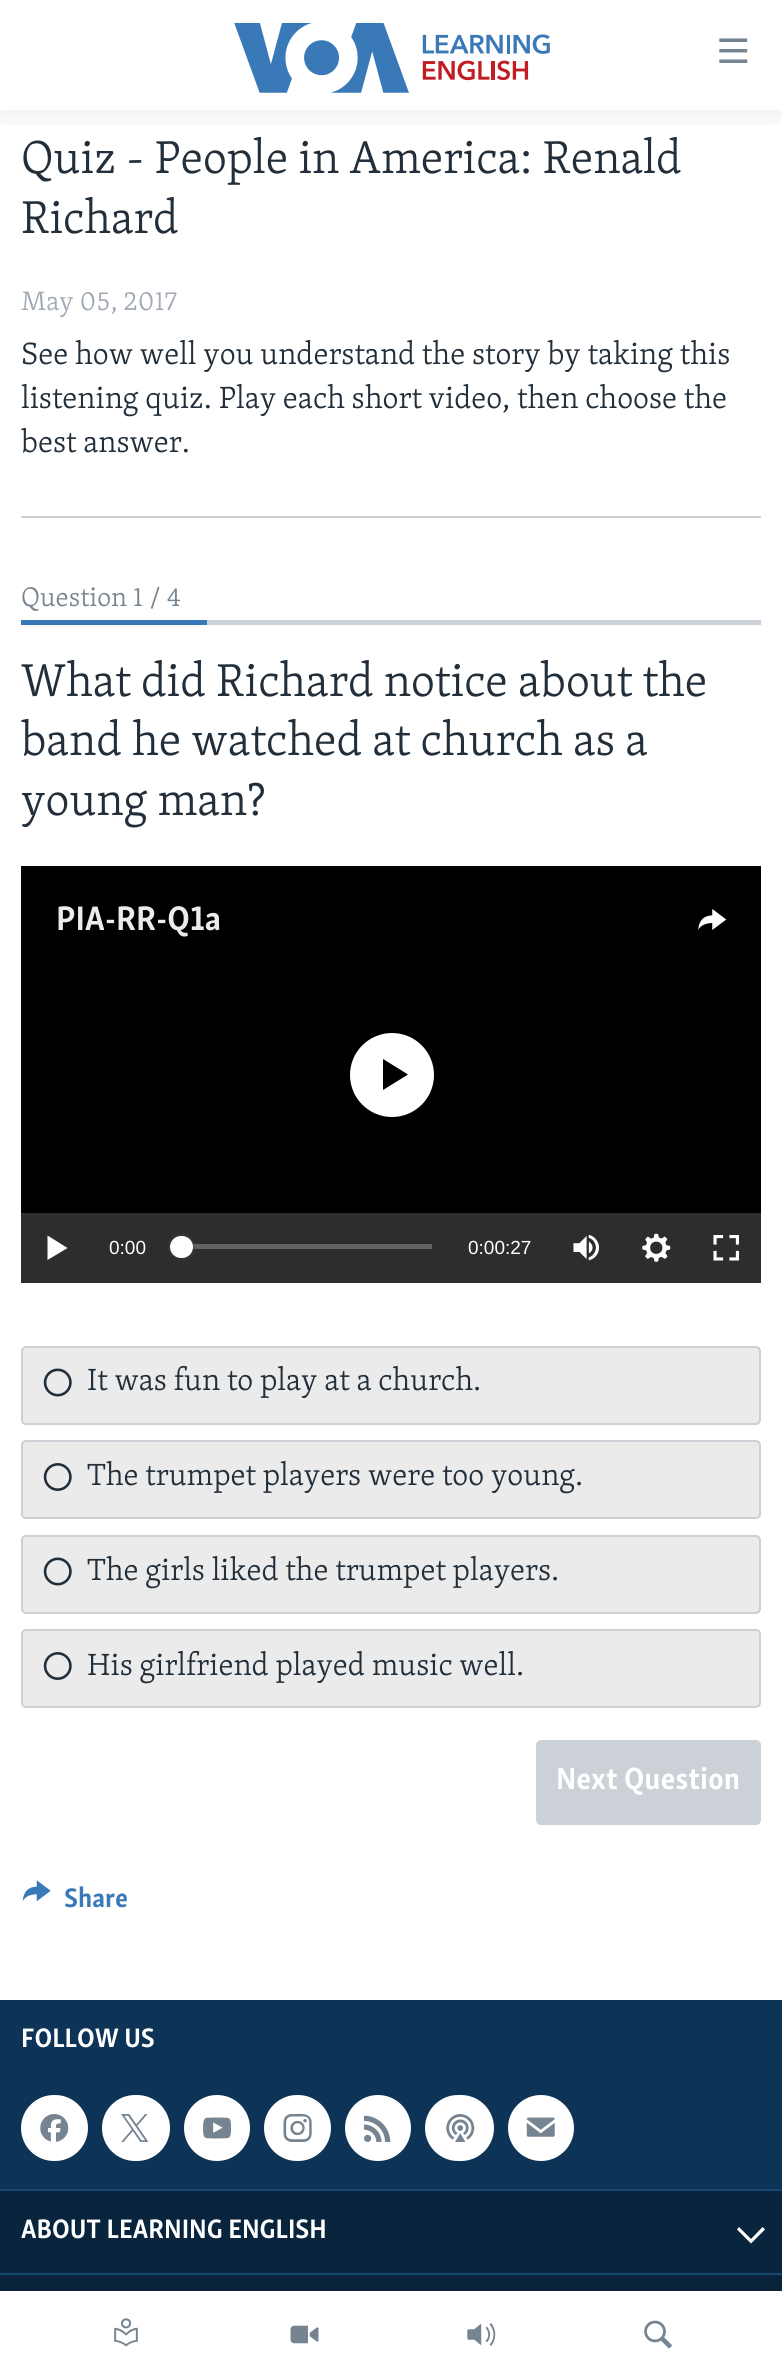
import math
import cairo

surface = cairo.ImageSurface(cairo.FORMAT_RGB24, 782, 2378)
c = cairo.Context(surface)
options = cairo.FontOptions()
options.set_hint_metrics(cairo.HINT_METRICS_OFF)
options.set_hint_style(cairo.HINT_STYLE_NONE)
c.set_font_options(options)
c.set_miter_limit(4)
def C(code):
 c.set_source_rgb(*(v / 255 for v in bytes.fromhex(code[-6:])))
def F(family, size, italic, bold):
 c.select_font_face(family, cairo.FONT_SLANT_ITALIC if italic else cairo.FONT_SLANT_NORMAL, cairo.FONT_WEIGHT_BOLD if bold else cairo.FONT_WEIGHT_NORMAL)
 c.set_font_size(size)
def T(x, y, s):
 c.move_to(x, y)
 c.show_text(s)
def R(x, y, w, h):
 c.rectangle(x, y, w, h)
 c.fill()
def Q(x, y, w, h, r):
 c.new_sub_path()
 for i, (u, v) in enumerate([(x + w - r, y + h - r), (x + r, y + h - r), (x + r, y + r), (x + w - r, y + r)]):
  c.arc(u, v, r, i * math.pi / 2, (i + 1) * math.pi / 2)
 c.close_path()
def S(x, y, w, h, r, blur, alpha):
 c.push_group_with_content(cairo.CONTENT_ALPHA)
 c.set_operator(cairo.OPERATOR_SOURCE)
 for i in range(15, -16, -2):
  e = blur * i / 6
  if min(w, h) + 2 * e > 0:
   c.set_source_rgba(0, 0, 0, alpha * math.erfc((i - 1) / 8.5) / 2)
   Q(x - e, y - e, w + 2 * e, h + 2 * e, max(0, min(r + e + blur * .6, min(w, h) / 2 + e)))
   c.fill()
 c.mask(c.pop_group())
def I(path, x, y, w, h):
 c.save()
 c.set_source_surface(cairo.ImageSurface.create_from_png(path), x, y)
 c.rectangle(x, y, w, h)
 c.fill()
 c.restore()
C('ffffff')
c.paint()
c.save()
c.rectangle(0,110,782,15)
c.clip()
C('000000')
S(0,0,782,110,0,17.5,.1)
c.restore()
I('1.png',234,23,316,70)
I('2.png',719,38,29,25)
C('09243d')
R(0,2191,782,82)
C('ffffff')
c.new_path()
c.move_to(737,2229.5)
c.line_to(751,2243.5)
c.line_to(765,2229.5)
c.line_to(762.5,2227)
c.line_to(751,2239)
c.line_to(739,2227)
c.close_path()
c.fill()
C('134976')
R(0,2273,782,2)
C('09243d')
R(0,2275,782,16)
C('000000')
S(0,2291,782,87,0,17.5,.1)
C('ffffff')
R(0,2291,782,87)
I('3.png',114,2318,24,29)
I('4.png',290,2325,29,19)
I('5.png',467,2323,29,23)
I('6.png',644,2320,28,29)
F('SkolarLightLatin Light',47.25,0,0)
C('222f3a')
T(21,173,'Quiz - People in America: Renald')
T(21,233,'Richard')
F('SkolarLightLatin Light',27.5,0,0)
C('a1aab4')
T(21,310,'May 05, 2017')
F('SkolarLightLatin Light',31.5,0,0)
C('222f3a')
T(21,364,'See how well you understand the story by taking this')
T(21,408,'listening quiz. Play each short video, then choose the')
T(21,452,'best answer.')
C('cbd1d6')
R(21,516,740,2)
F('SkolarLightLatin Light',27.5,0,0)
C('768492')
T(21,606,'Question 1 / 4')
C('cbd1d6')
R(207,620,554,5)
C('3a79b7')
R(21,620,186,5)
F('SkolarLightLatin Light',47.25,0,0)
C('222f3a')
T(21,696,'What did Richard notice about the')
T(21,755,'band he watched at church as a')
T(21,815,'young man?')
C('000000')
R(21,866,740,347)
F('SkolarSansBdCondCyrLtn',35,0,1)
C('ebebeb')
T(56,930,'PIA-RR-Q1a')
I('7.png',698,909,29,21)
C('ffffff')
c.arc(392,1075,42,0,2 * math.pi)
c.fill()
C('000000')
c.new_path()
c.move_to(383,1090)
c.line_to(408,1074.5)
c.line_to(383,1059)
c.close_path()
c.fill()
C('2d2d2d')
R(21,1213,740,70)
C('ffffff')
c.new_path()
c.move_to(47.5,1260)
c.line_to(67.5,1248)
c.line_to(47.5,1235.5)
c.close_path()
c.fill()
F('Liberation Sans',19,0,0)
T(109,1254,'0:00')
C('626262')
R(192,1244,240,5)
C('414144')
S(170,1236,23,22,11,2.5,1)
C('ffffff')
Q(170,1236,23,22,11)
c.fill()
T(468,1254,'0:00:27')
I('8.png',573,1234,26,27)
I('9.png',642,1233,29,29)
I('10.png',713,1235,26,26)
C('ebebeb')
Q(22,1347,738,77,4)
c.fill_preserve()
C('cbd1d6')
c.stroke()
I('11.png',43,1368,29,29)
F('SkolarLightLatin Light',31.5,0,0)
C('222f3a')
T(87,1390,'It was fun to play at a church.')
C('ebebeb')
Q(22,1441,738,77,4)
c.fill_preserve()
C('cbd1d6')
c.stroke()
I('12.png',43,1463,29,28)
C('222f3a')
T(87,1485,'The trumpet players were too young.')
C('ebebeb')
Q(22,1536,738,77,4)
c.fill_preserve()
C('cbd1d6')
c.stroke()
I('11.png',43,1557,29,29)
C('222f3a')
T(87,1580,'The girls liked the trumpet players.')
C('ebebeb')
Q(22,1630,738,77,4)
c.fill_preserve()
C('cbd1d6')
c.stroke()
I('12.png',43,1652,29,28)
C('222f3a')
T(87,1675,'His girlfriend played music well.')
C('cbd1d6')
Q(536,1740,225,85,5)
c.fill()
F('SkolarSansBdCondCyrLtn',31.5,0,1)
C('ffffff')
T(556,1789,'Next Question')
I('13.png',22,1880,29,22)
F('SkolarSansBdCondCyrLtn',27.5,0,1)
C('3a79b7')
T(64,1907,'Share')
C('0d3456')
R(0,2000,782,189)
C('ffffff')
T(21,2047,'FOLLOW US')
Q(21,2095,67,66,33)
c.fill()
I('14.png',40,2114,29,28)
Q(102,2095,68,66,33)
c.fill()
I('15.png',121,2114,28,28)
c.arc(217,2128,33,0,2 * math.pi)
c.fill()
I('16.png',203,2117,28,22)
Q(264,2095,67,66,33)
c.fill()
I('17.png',283,2114,29,28)
c.arc(378,2128,33,0,2 * math.pi)
c.fill()
I('18.png',364,2115,27,27)
Q(425,2095,69,66,33)
c.fill()
I('19.png',446,2114,29,28)
c.arc(541,2128,33,0,2 * math.pi)
c.fill()
I('20.png',526,2117,29,20)
C('134976')
R(0,2189,782,2)
C('ffffff')
T(21,2238,'ABOUT LEARNING ENGLISH')
surface.write_to_png('o.png')
